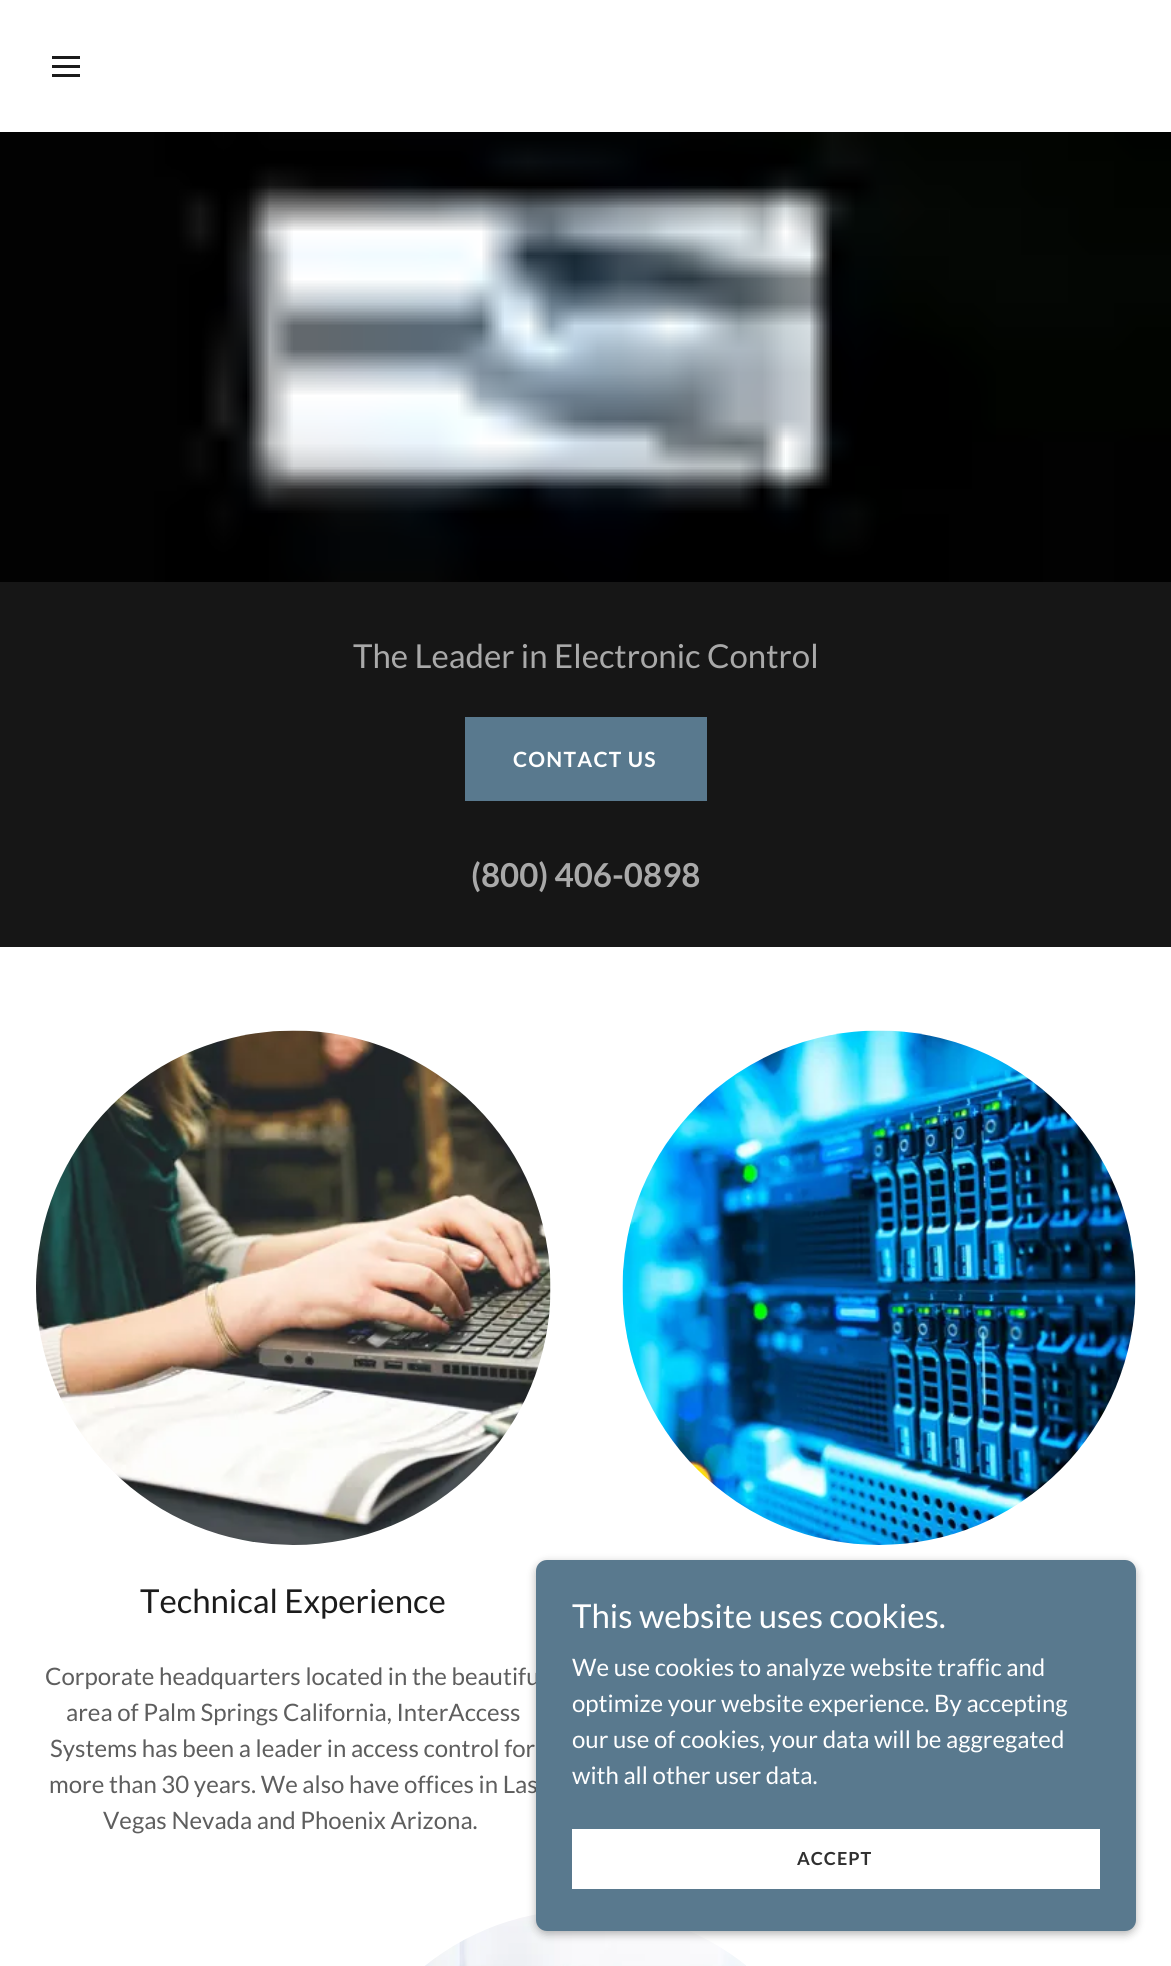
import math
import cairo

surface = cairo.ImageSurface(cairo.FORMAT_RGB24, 1171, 1966)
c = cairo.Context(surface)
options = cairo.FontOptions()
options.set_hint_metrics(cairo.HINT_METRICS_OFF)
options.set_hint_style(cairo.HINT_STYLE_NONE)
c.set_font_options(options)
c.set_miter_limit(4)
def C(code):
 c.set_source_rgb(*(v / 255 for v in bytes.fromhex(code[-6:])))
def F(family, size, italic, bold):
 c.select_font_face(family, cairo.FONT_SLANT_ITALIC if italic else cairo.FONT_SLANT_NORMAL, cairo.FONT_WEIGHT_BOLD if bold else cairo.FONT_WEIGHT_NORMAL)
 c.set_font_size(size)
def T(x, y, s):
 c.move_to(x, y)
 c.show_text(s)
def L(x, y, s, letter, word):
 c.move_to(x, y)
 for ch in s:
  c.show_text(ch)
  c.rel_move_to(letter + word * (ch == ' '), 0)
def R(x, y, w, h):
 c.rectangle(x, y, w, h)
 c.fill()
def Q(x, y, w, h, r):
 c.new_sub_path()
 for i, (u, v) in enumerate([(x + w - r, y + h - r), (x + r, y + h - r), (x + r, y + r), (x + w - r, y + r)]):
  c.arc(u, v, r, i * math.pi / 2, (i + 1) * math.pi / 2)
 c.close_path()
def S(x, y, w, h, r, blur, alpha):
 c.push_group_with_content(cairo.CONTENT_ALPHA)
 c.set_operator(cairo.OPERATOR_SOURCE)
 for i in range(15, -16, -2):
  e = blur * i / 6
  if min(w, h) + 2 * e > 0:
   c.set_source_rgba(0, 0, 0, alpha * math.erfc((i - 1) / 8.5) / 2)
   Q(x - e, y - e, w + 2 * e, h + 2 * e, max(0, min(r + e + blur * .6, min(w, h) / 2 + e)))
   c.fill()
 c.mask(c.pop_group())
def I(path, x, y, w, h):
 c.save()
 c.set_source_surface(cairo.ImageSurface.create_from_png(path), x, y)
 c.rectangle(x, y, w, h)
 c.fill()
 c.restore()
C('161616')
c.paint()
C('ffffff')
R(0,0,1171,132)
C('1b1b1b')
R(52,56,28,3)
R(52,65,28,3)
R(52,74,28,3)
I('1.png',0,132,1171,450)
F('Lato',33,0,0)
C('a9a9a9')
T(353,668,'The Leader in Electronic Control')
C('59798e')
R(465,717,242,84)
F('Lato',21,0,1)
C('ffffff')
L(513,767,'CONTACT US',1.25,0)
F('Lato',33,0,1)
C('a9a9a9')
T(471,887,'(800) 406-0898')
C('ffffff')
R(0,947,1171,1019)
I('2.png',622,1030,514,515)
I('3.png',36,1030,515,515)
F('Lato',33,0,0)
C('1b1b1b')
T(140,1613,'Technical Experience')
F('Lato',24,0,0)
C('5e5e5e')
T(45,1685,'Corporate headquarters located in the beautifu')
T(66,1721,'area of Palm Springs California, InterAccess')
T(50,1757,'Systems has been a leader in access control for')
T(49,1793,'more than 30 years. We also have offices in Las')
T(103,1829,'Vegas Nevada and Phoenix Arizona.')
I('4.png',425,1914,321,52)
C('000000')
S(536,1563,600,371,11,4.5,.3)
C('59798e')
Q(536,1560,600,371,11)
c.fill()
F('Lato',33,0,0)
C('ffffff')
T(572,1628,'This website uses cookies.')
F('Lato',24,0,0)
T(572,1676,'We use cookies to analyze website traffic and')
T(572,1712,'optimize your website experience. By accepting')
T(572,1748,'our use of cookies, your data will be aggregated')
T(572,1784,'with all other user data.')
R(572,1829,528,60)
F('Lato',18,0,1)
C('303030')
L(797,1865,'ACCEPT',1,0)
surface.write_to_png('o.png')
